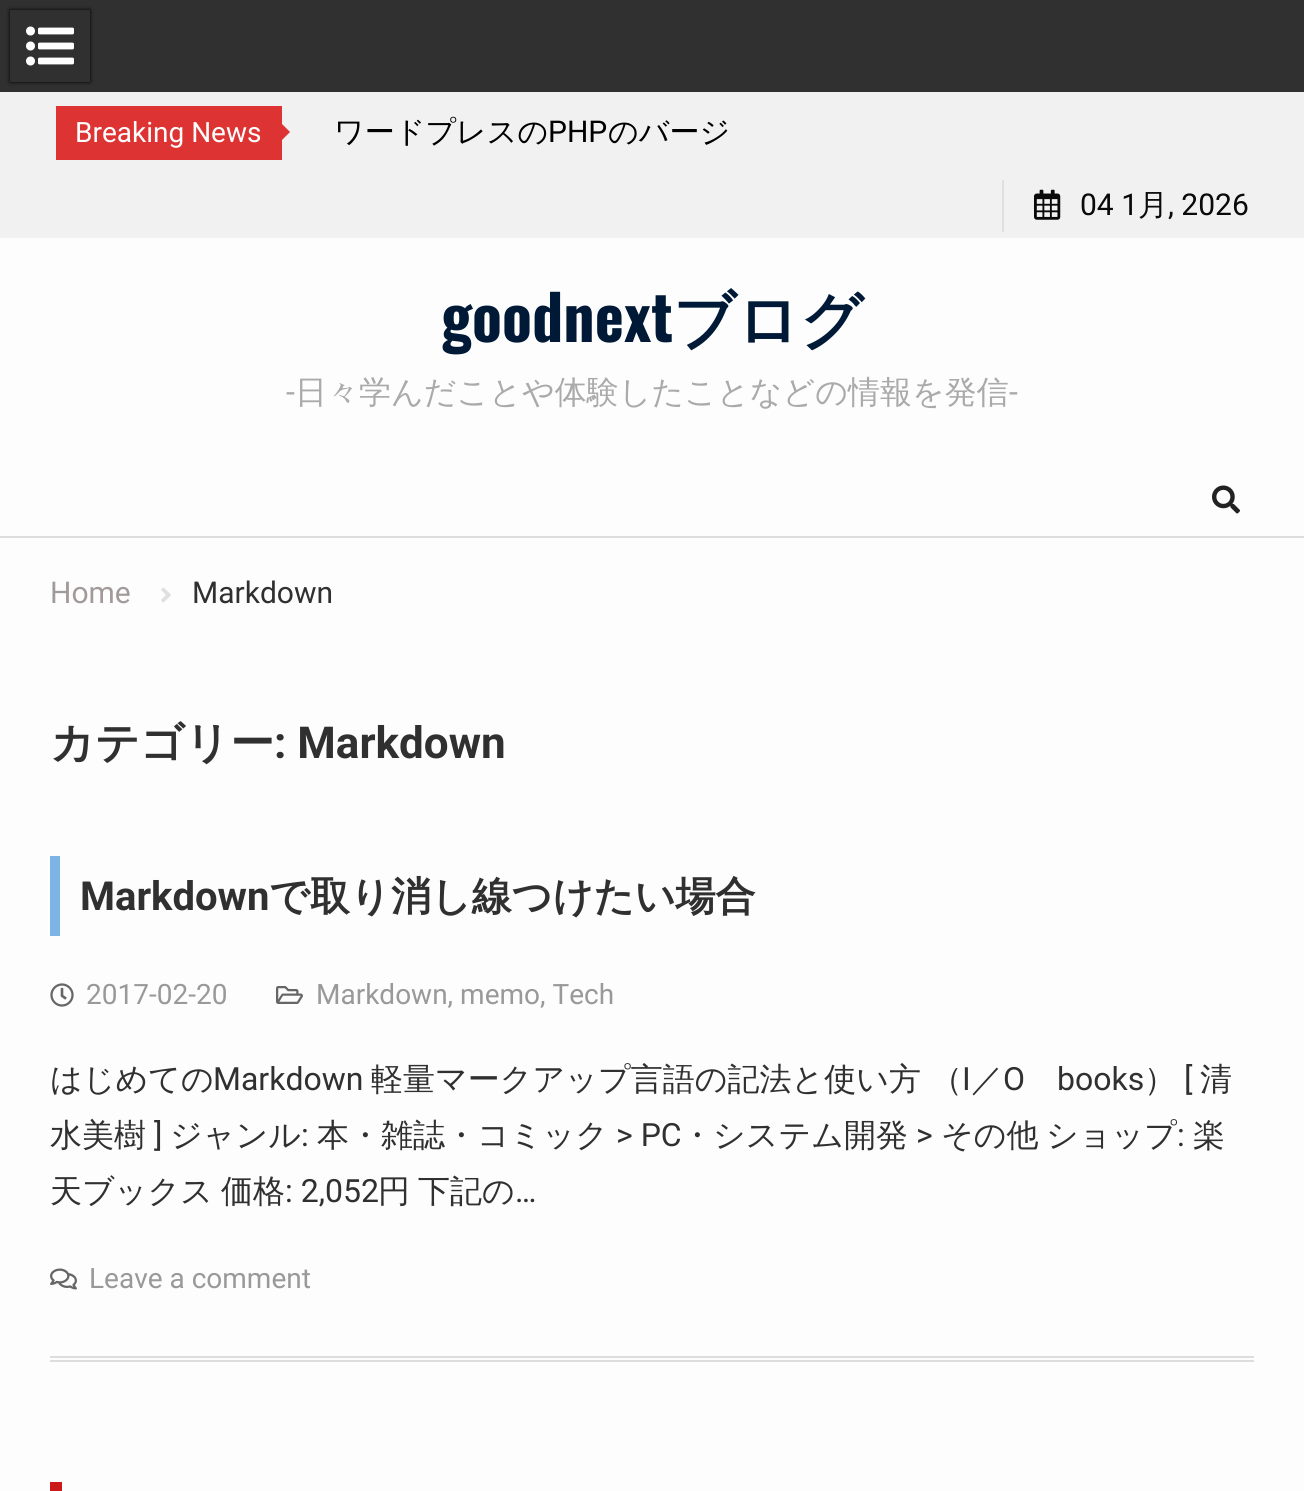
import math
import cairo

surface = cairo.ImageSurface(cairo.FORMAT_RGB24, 1304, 1491)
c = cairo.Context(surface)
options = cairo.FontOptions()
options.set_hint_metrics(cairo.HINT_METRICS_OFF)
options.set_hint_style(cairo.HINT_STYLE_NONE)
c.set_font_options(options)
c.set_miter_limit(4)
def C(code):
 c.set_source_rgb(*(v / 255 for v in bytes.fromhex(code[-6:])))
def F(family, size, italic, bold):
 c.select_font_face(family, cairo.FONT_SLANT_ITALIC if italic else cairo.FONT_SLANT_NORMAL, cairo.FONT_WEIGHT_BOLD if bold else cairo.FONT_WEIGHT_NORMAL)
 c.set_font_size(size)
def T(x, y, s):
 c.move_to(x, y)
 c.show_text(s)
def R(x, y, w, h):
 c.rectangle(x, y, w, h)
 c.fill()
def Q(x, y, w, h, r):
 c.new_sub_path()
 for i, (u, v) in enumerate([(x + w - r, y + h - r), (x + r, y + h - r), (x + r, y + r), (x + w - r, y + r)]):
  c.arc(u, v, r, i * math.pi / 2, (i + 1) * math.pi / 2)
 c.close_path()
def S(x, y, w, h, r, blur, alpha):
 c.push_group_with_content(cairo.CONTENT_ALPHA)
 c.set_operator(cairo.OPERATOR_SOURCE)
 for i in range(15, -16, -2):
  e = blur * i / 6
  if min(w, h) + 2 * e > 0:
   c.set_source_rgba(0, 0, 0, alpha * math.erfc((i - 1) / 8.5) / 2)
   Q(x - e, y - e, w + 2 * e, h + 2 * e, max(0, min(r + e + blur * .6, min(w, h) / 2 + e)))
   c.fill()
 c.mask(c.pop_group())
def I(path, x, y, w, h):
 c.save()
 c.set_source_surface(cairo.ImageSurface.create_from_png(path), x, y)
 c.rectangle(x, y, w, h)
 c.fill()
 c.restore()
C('fdfdfd')
c.paint()
C('f1f1f1')
R(0,92,1304,146)
C('dd3333')
R(56,106,226,54)
F('Roboto',28,0,0)
C('fdfdfd')
T(75,142,'Breaking News')
C('dd3333')
c.new_path()
c.move_to(270,152)
c.line_to(270,112)
c.line_to(290,132)
c.close_path()
c.fill()
F('WenQuanYi Zen Hei Medium',30,0,0)
C('000000')
T(334,142,'ワードプレスの')
F('Roboto',30,0,0)
T(548,142,'PHP')
F('WenQuanYi Zen Hei Medium',30,0,0)
T(608,142,'のバージ')
C('e0e0e0')
R(1002,180,2,52)
I('1.png',1034,189,27,31)
F('Roboto',30,0,0)
C('0a0a0a')
T(1080,215,'04 1')
F('WenQuanYi Zen Hei Medium',30,0,0)
T(1138,215,'月')
F('Roboto',30,0,0)
T(1168,215,', 2026')
C('303030')
R(0,0,1304,92)
c.save()
c.set_fill_rule(cairo.FILL_RULE_EVEN_ODD)
c.new_path()
c.move_to(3,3)
c.line_to(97,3)
c.line_to(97,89)
c.line_to(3,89)
c.close_path()
c.move_to(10,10)
c.line_to(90,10)
c.line_to(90,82)
c.line_to(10,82)
c.close_path()
c.clip()
C('000000')
S(10,10,80,72,0,2,1)
c.restore()
I('2.png',26,26,48,40)
F('Oswald',62,0,1)
C('001936')
T(441,342,'goodnext')
F('WenQuanYi Zen Hei',62,0,1)
T(673,342,'ブログ')
F('Roboto',32,0,0)
C('aaaaaa')
T(286,403,'-')
F('WenQuanYi Zen Hei Medium',32,0,0)
T(295,403,'日々学んだことや体験したことなどの情報を発信')
F('Roboto',32,0,0)
T(1009,403,'-')
C('dddddd')
R(0,536,1304,2)
I('3.png',1212,485,28,29)
F('Roboto',30,0,0)
C('a29a9a')
T(50,603,'Home')
I('4.png',161,587,10,16)
C('303030')
T(192,603,'Markdown')
F('WenQuanYi Zen Hei',44,0,1)
T(50,758,'カテゴリー')
F('Roboto',44,0,1)
T(274,758,': Markdown')
C('dddddd')
R(50,1356,1204,2)
R(50,1360,1204,2)
C('7db4e6')
R(50,856,10,80)
F('Roboto',40,0,1)
C('303030')
T(80,910,'Markdown')
F('WenQuanYi Zen Hei',40,0,1)
T(269,910,'で取り消し線つけたい場合')
I('5.png',50,983,24,24)
F('Roboto',28,0,0)
C('999999')
T(86,1004,'2017-02-20')
I('6.png',276,986,27,18)
T(316,1004,'Markdown, memo, Tech')
F('WenQuanYi Zen Hei Medium',32,0,0)
C('303030')
T(50,1090,'はじめての')
F('Roboto',32,0,0)
T(213,1090,'Markdown')
F('WenQuanYi Zen Hei Medium',32,0,0)
T(371,1090,'軽量マークアップ言語の記法と使い方 （')
F('Roboto',32,0,0)
T(962,1090,'I')
F('WenQuanYi Zen Hei Medium',32,0,0)
T(971,1090,'／')
F('Roboto',32,0,0)
T(1003,1090,'O')
T(1057,1090,'books')
F('WenQuanYi Zen Hei Medium',32,0,0)
T(1144,1090,'）')
F('Roboto',32,0,0)
T(1184,1090,'[')
F('WenQuanYi Zen Hei Medium',32,0,0)
T(1200,1090,'清')
T(50,1146,'水美樹')
F('Roboto',32,0,0)
T(154,1146,']')
F('WenQuanYi Zen Hei Medium',32,0,0)
T(170,1146,'ジャンル')
F('Roboto',32,0,0)
T(301,1146,':')
F('WenQuanYi Zen Hei Medium',32,0,0)
T(317,1146,'本・雑誌・コミック')
F('Roboto',32,0,0)
T(616,1146,'> PC')
F('WenQuanYi Zen Hei Medium',32,0,0)
T(681,1146,'・システム開発')
F('Roboto',32,0,0)
T(916,1146,'>')
F('WenQuanYi Zen Hei Medium',32,0,0)
T(941,1146,'その他')
T(1046,1146,'ショップ')
F('Roboto',32,0,0)
T(1177,1146,':')
F('WenQuanYi Zen Hei Medium',32,0,0)
T(1193,1146,'楽')
T(50,1202,'天ブックス')
T(221,1202,'価格')
F('Roboto',32,0,0)
T(285,1202,': 2,052')
F('WenQuanYi Zen Hei Medium',32,0,0)
T(378,1202,'円')
T(418,1202,'下記の')
F('Roboto',32,0,0)
T(515,1202,'…')
I('7.png',50,1268,27,22)
F('Roboto',28,0,0)
C('999999')
T(89,1288,'Leave a comment')
C('cc1919')
R(50,1482,12,9)
surface.write_to_png('o.png')
